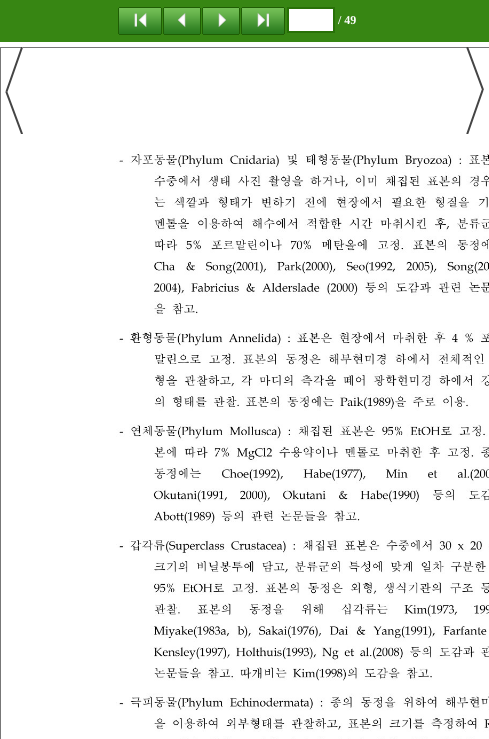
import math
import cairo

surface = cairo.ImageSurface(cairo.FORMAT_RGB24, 489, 739)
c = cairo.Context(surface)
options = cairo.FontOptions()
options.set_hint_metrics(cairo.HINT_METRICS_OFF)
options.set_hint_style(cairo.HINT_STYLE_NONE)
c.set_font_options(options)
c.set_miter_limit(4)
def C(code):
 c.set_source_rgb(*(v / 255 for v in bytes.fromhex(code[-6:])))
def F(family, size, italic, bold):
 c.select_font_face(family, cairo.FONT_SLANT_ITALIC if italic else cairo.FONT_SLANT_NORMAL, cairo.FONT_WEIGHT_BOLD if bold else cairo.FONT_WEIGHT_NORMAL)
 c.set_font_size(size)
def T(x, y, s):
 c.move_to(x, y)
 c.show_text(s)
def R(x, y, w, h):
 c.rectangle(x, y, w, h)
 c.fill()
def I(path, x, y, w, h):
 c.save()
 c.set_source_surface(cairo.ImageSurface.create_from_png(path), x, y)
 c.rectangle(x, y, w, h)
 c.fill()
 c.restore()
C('ffffff')
c.paint()
C('378613')
R(0,0,489,42)
I('1.png',118,7,44,28)
I('2.png',163,7,38,28)
I('3.png',202,7,38,28)
I('4.png',241,7,44,28)
C('ffffff')
c.rectangle(288,8,46,24)
c.fill_preserve()
C('287108')
c.stroke()
F('Liberation Serif',12,0,1)
C('ffffff')
T(338,24,'/ 49')
C('777777')
R(0,47,489,1)
R(0,47,1,692)
I('5.png',1,62,488,677)
I('6.png',5,47,18,87)
I('7.png',466,47,18,87)
surface.write_to_png('o.png')
